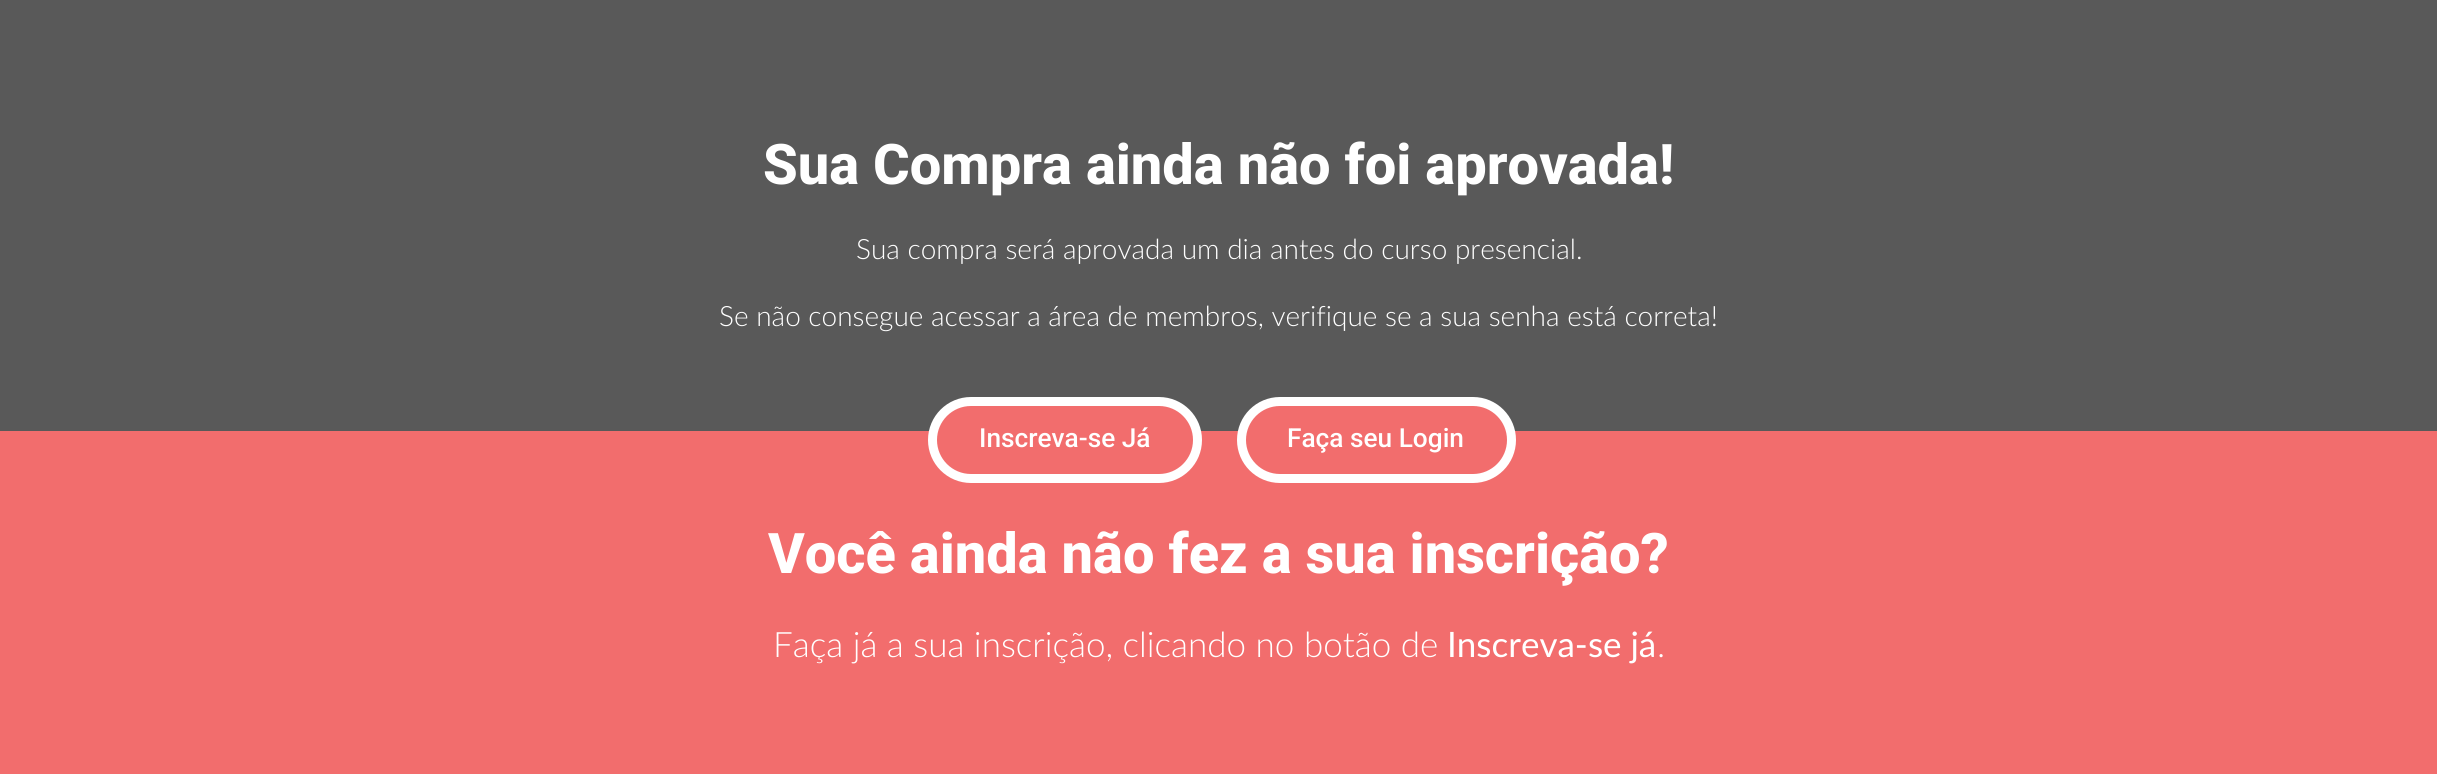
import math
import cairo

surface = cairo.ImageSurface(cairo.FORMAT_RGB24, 2437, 774)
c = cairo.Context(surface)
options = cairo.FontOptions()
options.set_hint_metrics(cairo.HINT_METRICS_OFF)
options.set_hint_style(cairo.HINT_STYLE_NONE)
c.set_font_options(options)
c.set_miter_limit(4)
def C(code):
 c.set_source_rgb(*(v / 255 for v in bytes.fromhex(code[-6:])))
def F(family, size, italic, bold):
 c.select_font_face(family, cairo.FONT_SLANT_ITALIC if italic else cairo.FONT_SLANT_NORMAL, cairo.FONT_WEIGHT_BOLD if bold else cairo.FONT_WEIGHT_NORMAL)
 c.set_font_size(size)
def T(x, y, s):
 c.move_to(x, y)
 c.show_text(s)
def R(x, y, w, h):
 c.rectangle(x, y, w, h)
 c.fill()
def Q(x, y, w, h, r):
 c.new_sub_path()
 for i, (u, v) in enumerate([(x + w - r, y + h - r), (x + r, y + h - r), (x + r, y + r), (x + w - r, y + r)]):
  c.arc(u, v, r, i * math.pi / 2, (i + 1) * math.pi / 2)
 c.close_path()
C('595959')
c.paint()
F('Roboto ExtraBold',56,0,0)
C('ffffff')
T(763,184,'Sua Compra ainda não foi aprovada!')
F('Lato Light',28,0,0)
T(856,259,'Sua compra será aprovada um dia antes do curso presencial.')
T(719,326,'Se não consegue acessar a área de membros, verifique se a sua senha está correta!')
C('f26d6d')
R(0,431,2437,343)
Q(932.5,401.5,265,77,38.5)
c.fill_preserve()
C('ffffff')
c.set_line_width(9)
c.stroke()
F('Roboto Medium',26.25,0,0)
T(979,447,'Inscreva-se Já')
C('f26d6d')
Q(1241.5,401.5,270,77,38.5)
c.fill_preserve()
C('ffffff')
c.stroke()
T(1287,447,'Faça seu Login')
F('Roboto ExtraBold',56,0,0)
T(768,573,'Você ainda não fez a sua inscrição?')
F('Lato Light',35,0,0)
T(773,657,'Faça já a sua inscrição, clicando no botão de')
F('Lato',35,0,0)
T(1447,657,'Inscreva-se já')
F('Lato Light',35,0,0)
T(1657,657,'.')
surface.write_to_png('o.png')
